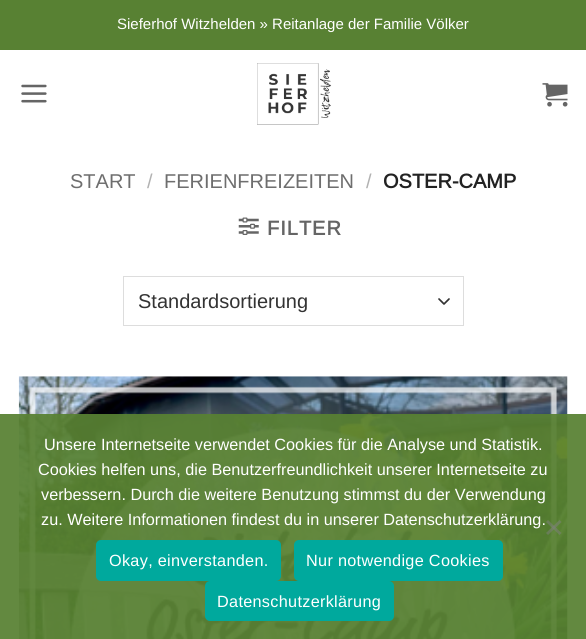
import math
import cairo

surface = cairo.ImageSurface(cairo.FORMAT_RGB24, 586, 639)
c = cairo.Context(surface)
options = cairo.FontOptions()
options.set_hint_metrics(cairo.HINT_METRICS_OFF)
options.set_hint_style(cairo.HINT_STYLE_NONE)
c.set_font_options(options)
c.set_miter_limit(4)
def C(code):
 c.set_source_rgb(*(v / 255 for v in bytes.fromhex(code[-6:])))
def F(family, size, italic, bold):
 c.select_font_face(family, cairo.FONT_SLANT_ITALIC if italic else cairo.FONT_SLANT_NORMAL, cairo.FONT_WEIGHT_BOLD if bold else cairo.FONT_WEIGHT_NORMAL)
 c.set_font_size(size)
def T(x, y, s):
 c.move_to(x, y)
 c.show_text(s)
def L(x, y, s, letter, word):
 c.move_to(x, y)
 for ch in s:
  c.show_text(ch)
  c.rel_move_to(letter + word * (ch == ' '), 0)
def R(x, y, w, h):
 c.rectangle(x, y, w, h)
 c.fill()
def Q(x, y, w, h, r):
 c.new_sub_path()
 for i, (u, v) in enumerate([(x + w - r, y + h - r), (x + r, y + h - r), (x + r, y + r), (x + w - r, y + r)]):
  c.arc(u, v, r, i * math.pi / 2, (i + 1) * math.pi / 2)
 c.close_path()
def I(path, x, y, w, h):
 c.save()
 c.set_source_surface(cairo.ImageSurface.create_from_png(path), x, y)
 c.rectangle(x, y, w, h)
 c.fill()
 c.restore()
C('ffffff')
c.paint()
C('588133')
R(0,0,586,50)
F('Arimo',15,0,0)
C('ffffff')
T(117,29,'Sieferhof Witzhelden » Reitanlage der Familie Völker')
I('1.png',21,84,26,19)
I('2.png',257,63,75,62)
I('3.png',542,83,26,24)
F('Arimo',20,0,0)
C('6e6e6e')
T(70,188,'START')
C('b2b2b2')
T(147,188,'/')
C('6e6e6e')
T(164,188,'FERIENFREIZEITEN')
C('b2b2b2')
T(366,188,'/')
F('Arimo',20,0,1)
C('222222')
T(383,188,'OSTER-CAMP')
I('4.png',238,217,21,18)
C('656565')
L(267,235,'FILTER',1,0)
c.new_path()
c.move_to(439,299)
c.line_to(444,304)
c.line_to(449,299)
C('333333')
c.set_line_width(1.7)
c.set_line_cap(cairo.LINE_CAP_ROUND)
c.set_line_join(cairo.LINE_JOIN_ROUND)
c.stroke()
c.rectangle(123.5,276.5,340,49)
C('dddddd')
c.set_line_width(1)
c.set_line_cap(cairo.LINE_CAP_BUTT)
c.set_line_join(cairo.LINE_JOIN_MITER)
c.stroke()
F('Arimo',20,0,0)
C('333333')
T(138,308,'Standardsortierung')
I('5.png',18,376,550,263)
c.set_source_rgba(0.345,0.506,0.2,0.93)
R(0,414,586,225)
F('Liberation Sans',16.25,0,0)
C('ffffff')
T(44,450,'Unsere Internetseite verwendet Cookies für die Analyse und Statistik.')
T(38,475,'Cookies helfen uns, die Benutzerfreundlichkeit unserer Internetseite zu')
T(41,500,'verbessern. Durch die weitere Benutzung stimmst du der Verwendung')
T(41,525,'zu. Weitere Informationen findest du in unserer Datenschutzerklärung.')
c.set_source_rgba(0.502,0.502,0.502,0.5)
c.new_path()
c.move_to(559.5,520)
c.line_to(561.5,522)
c.line_to(548,535)
c.line_to(546,533)
c.close_path()
c.fill()
c.new_path()
c.move_to(546,522)
c.line_to(548,520)
c.line_to(561.5,533)
c.line_to(559.5,535)
c.close_path()
c.fill()
C('00a99d')
Q(96,540,185,41,5)
c.fill()
C('ffffff')
L(109,566,'Okay, einverstanden.',.3,0)
C('00a99d')
Q(294,540,209,41,5)
c.fill()
C('ffffff')
L(306,566,'Nur notwendige Cookies',.3,0)
C('00a99d')
Q(205,581,189,40,5)
c.fill()
C('ffffff')
L(217,607,'Datenschutzerklärung',.3,0)
surface.write_to_png('o.png')
